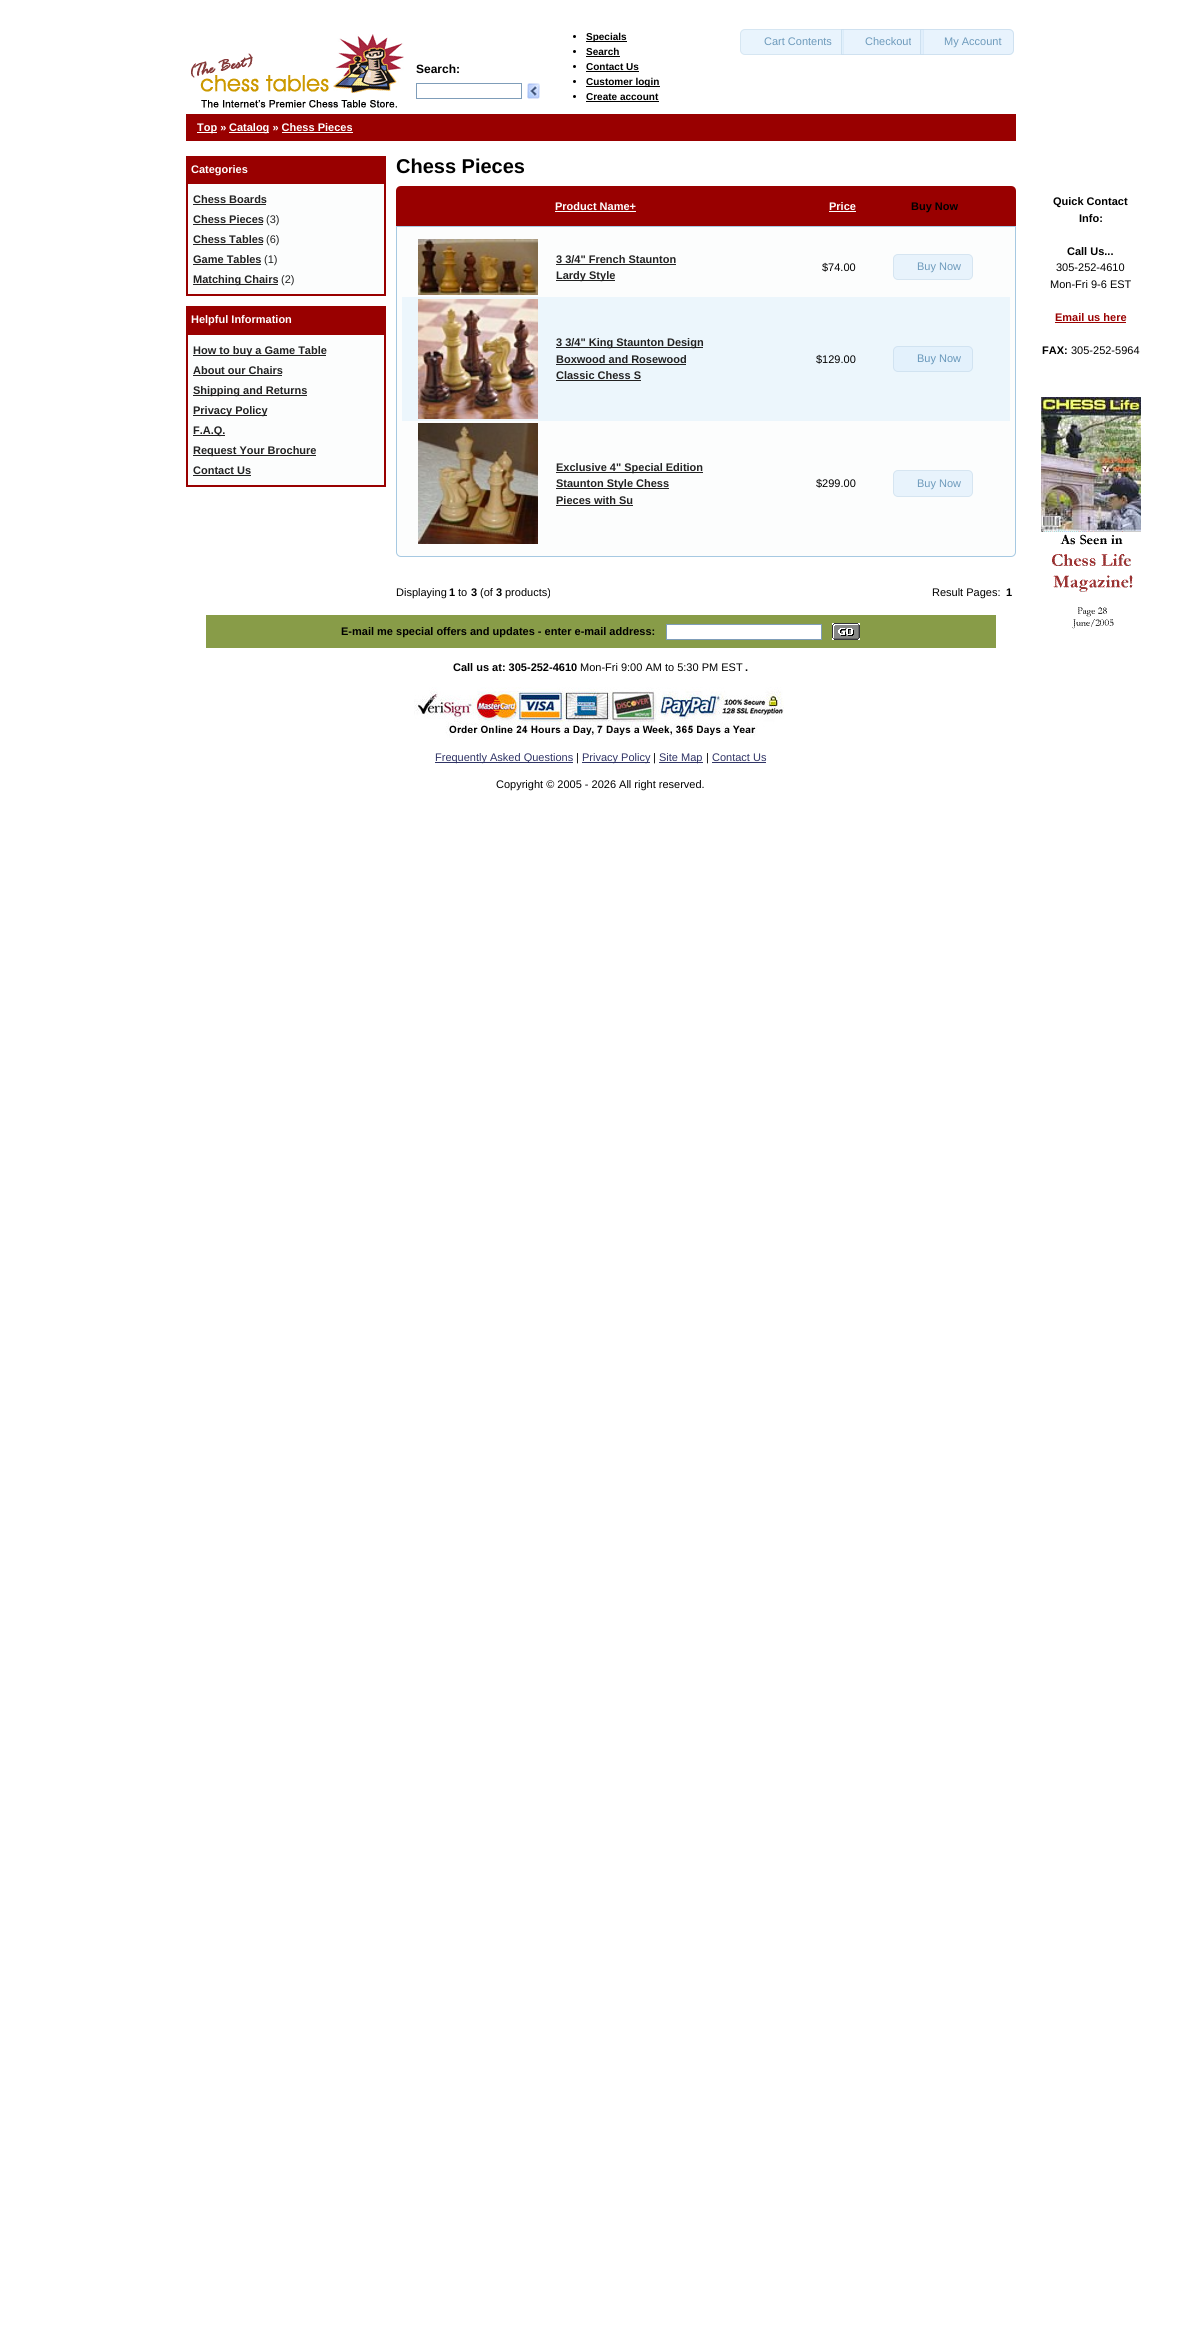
import math
import cairo

surface = cairo.ImageSurface(cairo.FORMAT_RGB24, 1183, 2326)
c = cairo.Context(surface)
options = cairo.FontOptions()
options.set_hint_metrics(cairo.HINT_METRICS_OFF)
options.set_hint_style(cairo.HINT_STYLE_NONE)
c.set_font_options(options)
c.set_miter_limit(4)
def C(code):
 c.set_source_rgb(*(v / 255 for v in bytes.fromhex(code[-6:])))
def F(family, size, italic, bold):
 c.select_font_face(family, cairo.FONT_SLANT_ITALIC if italic else cairo.FONT_SLANT_NORMAL, cairo.FONT_WEIGHT_BOLD if bold else cairo.FONT_WEIGHT_NORMAL)
 c.set_font_size(size)
def T(x, y, s):
 c.move_to(x, y)
 c.show_text(s)
def R(x, y, w, h):
 c.rectangle(x, y, w, h)
 c.fill()
def Q(x, y, w, h, r):
 c.new_sub_path()
 for i, (u, v) in enumerate([(x + w - r, y + h - r), (x + r, y + h - r), (x + r, y + r), (x + w - r, y + r)]):
  c.arc(u, v, r, i * math.pi / 2, (i + 1) * math.pi / 2)
 c.close_path()
def I(path, x, y, w, h):
 c.save()
 c.set_source_surface(cairo.ImageSurface.create_from_png(path), x, y)
 c.rectangle(x, y, w, h)
 c.fill()
 c.restore()
C('ffffff')
c.paint()
I('1.png',191,34,213,74)
C('000000')
c.arc(574.5,36.5,1.5,0,2 * math.pi)
c.fill()
R(586,41,41,1)
F('Liberation Sans',10,0,1)
T(586,40,'Specials')
c.new_path()
c.arc(574.5,51.5,1.5,0,2 * math.pi)
c.fill()
T(586,55,'Search')
R(586,56,34,1)
c.new_path()
c.arc(574.5,66.5,1.5,0,2 * math.pi)
c.fill()
T(586,70,'Contact Us')
R(586,71,53,1)
c.new_path()
c.arc(574.5,81.5,1.5,0,2 * math.pi)
c.fill()
R(586,86,74,1)
T(586,85,'Customer login')
c.new_path()
c.arc(574.5,96.5,1.5,0,2 * math.pi)
c.fill()
T(586,100,'Create account')
R(586,101,73,1)
C('e9f4fd')
c.new_path()
c.move_to(745,29.5)
c.line_to(843.5,29.5)
c.line_to(843.5,54.5)
c.line_to(745,54.5)
c.curve_to(742.5,54.5,740.5,52.5,740.5,50)
c.line_to(740.5,34)
c.curve_to(740.5,31.5,742.5,29.5,745,29.5)
c.close_path()
c.fill_preserve()
C('d6e6f2')
c.set_line_width(1)
c.stroke()
F('Liberation Sans',11,0,0)
C('6d9abb')
T(764,45,'Cart Contents')
c.set_source_rgba(0.875,0.937,0.988,0.7)
R(841,29,83,26)
c.rectangle(841.5,29.5,82,25)
c.set_source_rgba(0.773,0.859,0.925,0.7)
c.stroke()
C('6d9abb')
T(865,45,'Checkout')
c.set_source_rgba(0.875,0.937,0.988,0.7)
c.new_path()
c.move_to(920,29)
c.line_to(1009,29)
c.curve_to(1012,29,1014,31,1014,34)
c.line_to(1014,50)
c.curve_to(1014,53,1012,55,1009,55)
c.line_to(920,55)
c.close_path()
c.fill()
c.new_path()
c.move_to(920.5,29.5)
c.line_to(1009,29.5)
c.curve_to(1011.5,29.5,1013.5,31.5,1013.5,34)
c.line_to(1013.5,50)
c.curve_to(1013.5,52.5,1011.5,54.5,1009,54.5)
c.line_to(920.5,54.5)
c.close_path()
c.set_source_rgba(0.773,0.859,0.925,0.7)
c.stroke()
C('6d9abb')
T(944,45,'My Account')
F('Liberation Sans',12,0,1)
C('000000')
T(416,73,'Search:')
c.rectangle(416.5,83.5,105,15)
C('7f9db9')
c.stroke()
I('2.png',527,83,13,16)
C('990000')
R(186,114,830,27)
C('ffffff')
R(197,132,20,1)
F('Liberation Sans',11,0,1)
T(197,131,'Top »')
R(229,132,40,1)
T(229,131,'Catalog » Chess Pieces')
R(282,132,71,1)
C('990000')
R(186,156,200,26)
C('ffffff')
T(191,173,'Categories')
C('fcfdfd')
c.rectangle(187,183,198,112)
c.fill_preserve()
C('990000')
c.set_line_width(2)
c.stroke()
C('222222')
T(193,203,'Chess Boards')
R(193,204,73,1)
T(193,223,'Chess Pieces')
R(193,224,70,1)
F('Liberation Sans',11,0,0)
T(266,223,'(3)')
F('Liberation Sans',11,0,1)
T(193,243,'Chess Tables')
R(193,244,70,1)
F('Liberation Sans',11,0,0)
T(266,243,'(6)')
F('Liberation Sans',11,0,1)
T(193,263,'Game Tables')
R(193,264,68,1)
F('Liberation Sans',11,0,0)
T(264,263,'(1)')
R(193,284,85,1)
F('Liberation Sans',11,0,1)
T(193,283,'Matching Chairs')
F('Liberation Sans',11,0,0)
T(281,283,'(2)')
C('990000')
R(186,306,200,27)
F('Liberation Sans',11,0,1)
C('ffffff')
T(191,323,'Helpful Information')
C('fcfdfd')
c.rectangle(187,334,198,152)
c.fill_preserve()
C('990000')
c.stroke()
C('222222')
R(193,355,133,1)
T(193,354,'How to buy a Game Table')
T(193,374,'About our Chairs')
R(193,375,89,1)
R(193,395,114,1)
T(193,394,'Shipping and Returns')
R(193,415,74,1)
T(193,414,'Privacy Policy')
R(193,435,32,1)
T(193,434,'F.A.Q.')
R(193,455,123,1)
T(193,454,'Request Your Brochure')
T(193,474,'Contact Us')
R(193,475,58,1)
F('Liberation Sans',20,0,1)
C('000000')
T(396,173,'Chess Pieces')
C('990000')
c.new_path()
c.move_to(401,186)
c.line_to(1011,186)
c.curve_to(1014,186,1016,188,1016,191)
c.line_to(1016,226)
c.line_to(396,226)
c.line_to(396,191)
c.curve_to(396,188,398,186,401,186)
c.close_path()
c.fill()
F('Liberation Sans',11,0,1)
C('ffffff')
T(555,210,'Product Name+')
R(555,211,81,1)
T(829,210,'Price')
R(829,211,27,1)
C('000000')
T(911,210,'Buy Now')
C('fcfdfd')
c.new_path()
c.move_to(396.5,226.5)
c.line_to(1015.5,226.5)
c.line_to(1015.5,552)
c.curve_to(1015.5,554.5,1013.5,556.5,1011,556.5)
c.line_to(401,556.5)
c.curve_to(398.5,556.5,396.5,554.5,396.5,552)
c.close_path()
c.fill_preserve()
C('a6c9e2')
c.set_line_width(1)
c.stroke()
I('3.png',418,239,120,56)
C('222222')
T(556,263,'3 3/4" French Staunton')
R(556,264,120,1)
R(556,280,59,1)
T(556,279,'Lardy Style')
F('Liberation Sans',11,0,0)
C('000000')
T(822,271,'$74.00')
C('e8f3fc')
Q(893.5,254.5,79,25,4.5)
c.fill_preserve()
C('d6e5f1')
c.stroke()
C('6d9abb')
T(917,270,'Buy Now')
C('ecf6fc')
R(402,297,608,124)
I('4.png',418,299,120,120)
C('222222')
R(556,347,147,1)
F('Liberation Sans',11,0,1)
T(556,346,'3 3/4" King Staunton Design')
T(556,363,'Boxwood and Rosewood')
R(556,364,130,1)
T(556,379,'Classic Chess S')
R(556,380,85,1)
F('Liberation Sans',11,0,0)
C('000000')
T(816,363,'$129.00')
C('e3f1fc')
Q(893.5,346.5,79,25,4.5)
c.fill_preserve()
C('d1e3f1')
c.stroke()
C('6797ba')
T(917,362,'Buy Now')
I('5.png',418,423,120,121)
C('222222')
R(556,472,147,1)
F('Liberation Sans',11,0,1)
T(556,471,'Exclusive 4" Special Edition')
R(556,488,113,1)
T(556,487,'Staunton Style Chess')
T(556,504,'Pieces with Su')
R(556,505,77,1)
F('Liberation Sans',11,0,0)
C('000000')
T(816,487,'$299.00')
C('e8f3fc')
Q(893.5,470.5,79,26,4.5)
c.fill_preserve()
C('d6e5f1')
c.stroke()
C('6d9abb')
T(917,487,'Buy Now')
C('000000')
T(396,596,'Displaying')
F('Liberation Sans',11,0,1)
T(449,596,'1')
F('Liberation Sans',11,0,0)
T(458,596,'to')
F('Liberation Sans',11,0,1)
T(471,596,'3')
F('Liberation Sans',11,0,0)
T(480,596,'(of')
F('Liberation Sans',11,0,1)
T(496,596,'3')
F('Liberation Sans',11,0,0)
T(505,596,'products)')
T(932,596,'Result Pages:')
F('Liberation Sans',11,0,1)
T(1006,596,'1')
C('889c48')
R(206,615,790,33)
C('000000')
T(341,635,'E-mail me special offers and updates - enter e-mail address:')
C('ffffff')
c.rectangle(666.5,624.5,155,15)
c.fill_preserve()
C('7f9db9')
c.stroke()
I('6.png',832,623,28,17)
C('000000')
T(453,671,'Call us at: 305-252-4610')
F('Liberation Sans',11,0,0)
T(580,671,'Mon-Fri 9:00 AM to 5:30 PM EST')
F('Liberation Sans',11,0,1)
T(745,671,'.')
I('7.png',414,687,370,51)
C('2f3365')
R(435,762,138,1)
F('Liberation Sans',11,0,0)
T(435,761,'Frequently Asked Questions')
C('000000')
T(576,761,'|')
C('2f3365')
R(582,762,68,1)
T(582,761,'Privacy Policy')
C('000000')
T(653,761,'|')
C('2f3365')
R(659,762,44,1)
T(659,761,'Site Map')
C('000000')
T(706,761,'|')
C('2f3365')
T(712,761,'Contact Us')
R(712,762,54,1)
C('000000')
T(496,788,'Copyright © 2005 - 2026 All right reserved.')
F('Liberation Sans',11,0,1)
T(1053,205,'Quick Contact')
T(1079,222,'Info:')
T(1067,255,'Call Us...')
F('Liberation Sans',11,0,0)
T(1056,271,'305-252-4610')
T(1050,288,'Mon-Fri 9-6 EST')
F('Liberation Sans',11,0,1)
C('990000')
T(1055,321,'Email us here')
R(1055,322,71,1)
C('000000')
T(1042,354,'FAX:')
F('Liberation Sans',11,0,0)
T(1071,354,'305-252-5964')
I('8.png',1041,397,100,134)
I('9.png',1041,531,100,98)
surface.write_to_png('o.png')
